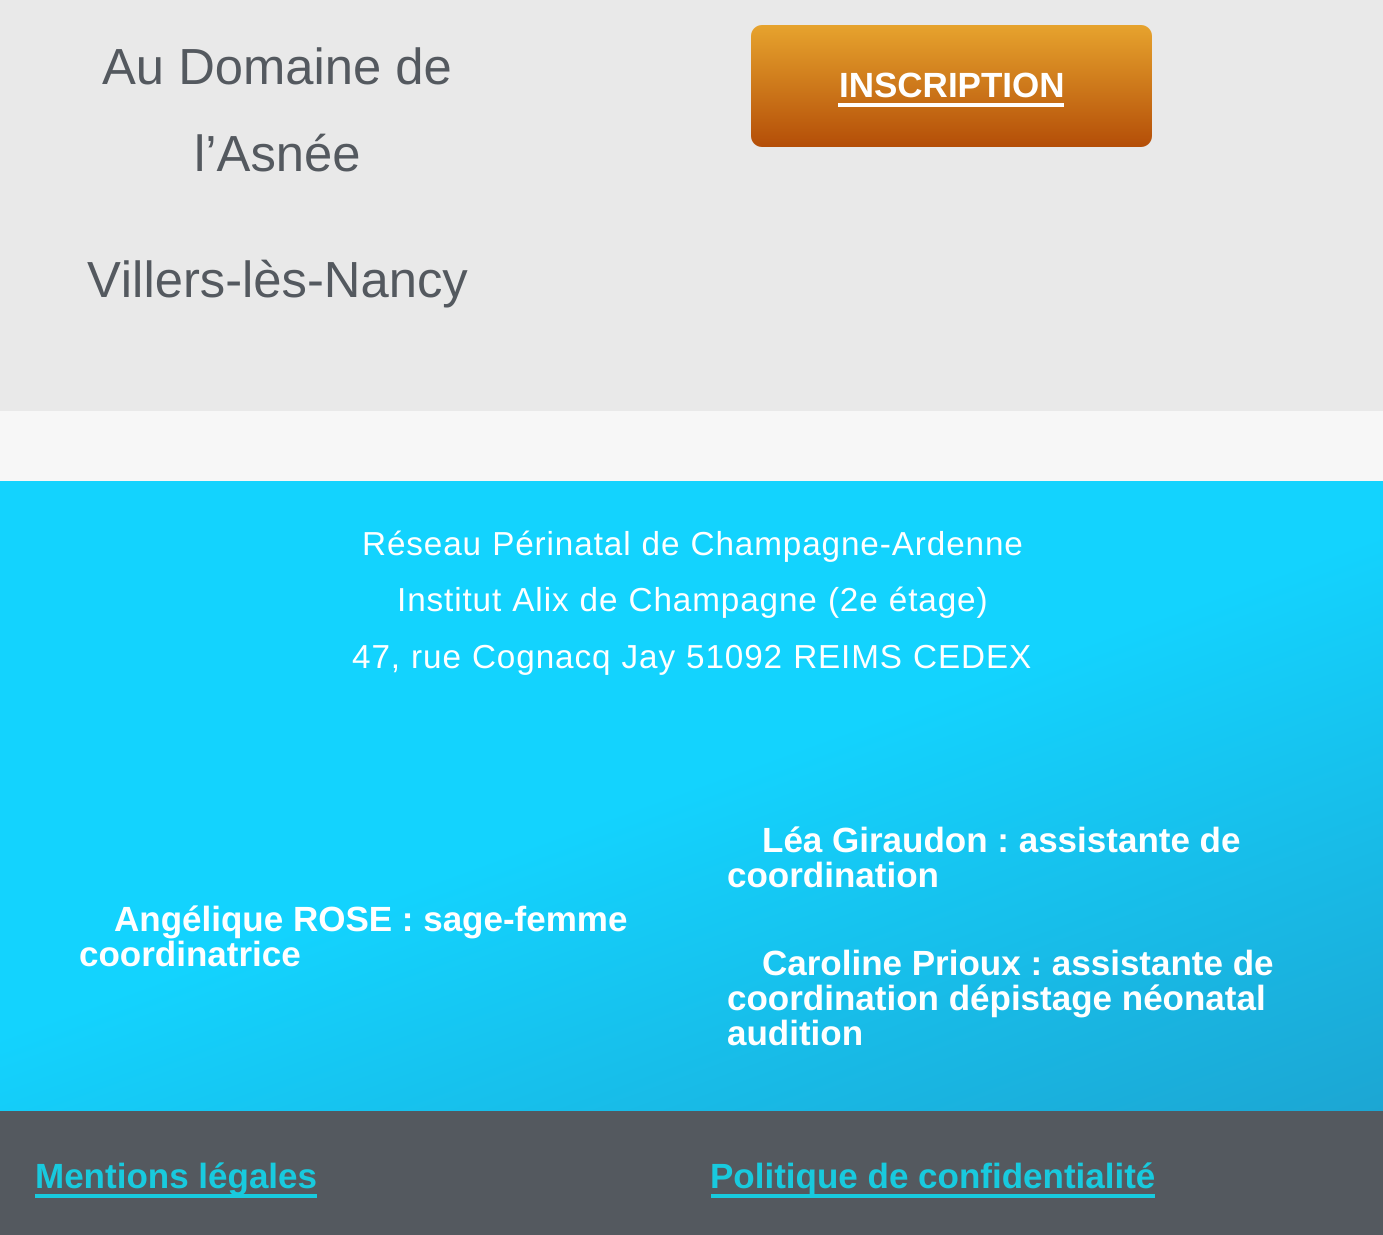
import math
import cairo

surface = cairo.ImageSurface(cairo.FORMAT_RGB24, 1383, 1235)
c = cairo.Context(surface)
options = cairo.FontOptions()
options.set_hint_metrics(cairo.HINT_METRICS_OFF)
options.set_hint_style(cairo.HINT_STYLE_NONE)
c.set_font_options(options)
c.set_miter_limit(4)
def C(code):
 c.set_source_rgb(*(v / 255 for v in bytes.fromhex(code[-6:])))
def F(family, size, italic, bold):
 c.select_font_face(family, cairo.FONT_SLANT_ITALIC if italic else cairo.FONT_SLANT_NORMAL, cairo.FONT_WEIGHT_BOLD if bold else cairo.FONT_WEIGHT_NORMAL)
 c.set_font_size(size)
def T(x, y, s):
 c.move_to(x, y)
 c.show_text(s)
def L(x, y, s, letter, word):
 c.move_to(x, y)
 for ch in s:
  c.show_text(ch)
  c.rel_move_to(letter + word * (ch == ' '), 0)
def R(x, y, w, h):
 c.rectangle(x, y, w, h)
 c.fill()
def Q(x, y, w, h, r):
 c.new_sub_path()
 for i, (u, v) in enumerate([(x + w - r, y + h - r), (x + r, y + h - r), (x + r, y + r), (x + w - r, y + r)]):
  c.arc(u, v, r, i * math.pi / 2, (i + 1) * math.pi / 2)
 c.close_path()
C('f7f7f7')
c.paint()
C('e9e9e9')
R(0,0,1383,411)
F('Liberation Sans',50.75,0,0)
C('54595f')
T(102,84,'Au Domaine de')
T(194,171,'l’Asnée')
T(87,297,'Villers-lès-Nancy')
gradient = cairo.LinearGradient(951,24,951,147)
gradient.add_color_stop_rgba(0,0.906,0.643,0.18,1)
gradient.add_color_stop_rgba(1,0.706,0.306,0.031,1)
c.set_source(gradient)
Q(751,25,401,122,11)
c.fill()
F('Liberation Sans',35,0,1)
C('ffffff')
T(839,97,'INSCRIPTION')
R(838,103,226,4)
gradient = cairo.LinearGradient(510,296,874,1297)
gradient.add_color_stop_rgba(.49,0.075,0.827,0.996,1)
gradient.add_color_stop_rgba(1,0.11,0.651,0.827,1)
c.set_source(gradient)
R(0,481,1383,630)
F('Liberation Sans',33.25,0,0)
C('ffffff')
L(362,555,'Réseau Périnatal de Champagne-Ardenne',.9,0)
L(397,611,'Institut Alix de Champagne (2e étage)',.9,0)
L(352,668,'47, rue Cognacq Jay 51092 REIMS CEDEX',.9,0)
F('Liberation Sans',35,0,1)
T(114,931,'Angélique ROSE : sage-femme')
T(79,966,'coordinatrice')
T(762,852,'Léa Giraudon : assistante de')
T(727,887,'coordination')
T(762,975,'Caroline Prioux : assistante de')
T(727,1010,'coordination dépistage néonatal')
T(727,1045,'audition')
C('54595f')
R(0,1111,1383,124)
C('18cade')
R(35,1194,282,4)
T(35,1188,'Mentions légales')
R(711,1194,444,4)
T(710,1188,'Politique de confidentialité')
surface.write_to_png('o.png')
